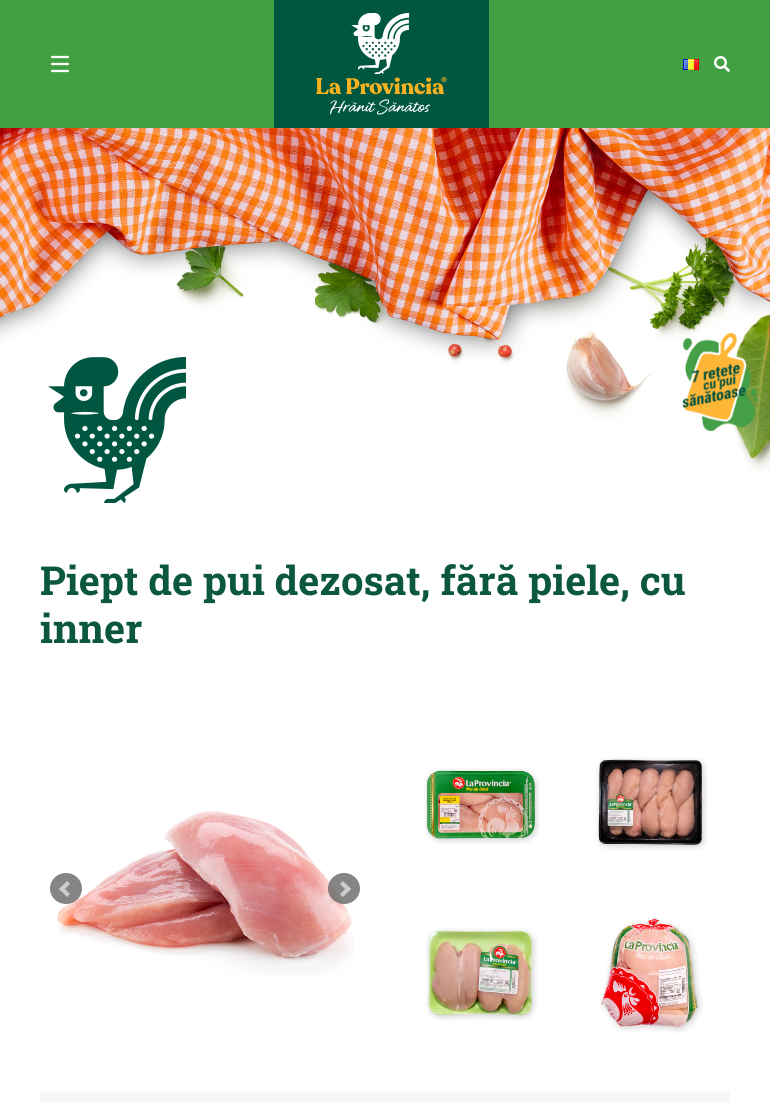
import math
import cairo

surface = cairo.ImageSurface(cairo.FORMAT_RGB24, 770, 1103)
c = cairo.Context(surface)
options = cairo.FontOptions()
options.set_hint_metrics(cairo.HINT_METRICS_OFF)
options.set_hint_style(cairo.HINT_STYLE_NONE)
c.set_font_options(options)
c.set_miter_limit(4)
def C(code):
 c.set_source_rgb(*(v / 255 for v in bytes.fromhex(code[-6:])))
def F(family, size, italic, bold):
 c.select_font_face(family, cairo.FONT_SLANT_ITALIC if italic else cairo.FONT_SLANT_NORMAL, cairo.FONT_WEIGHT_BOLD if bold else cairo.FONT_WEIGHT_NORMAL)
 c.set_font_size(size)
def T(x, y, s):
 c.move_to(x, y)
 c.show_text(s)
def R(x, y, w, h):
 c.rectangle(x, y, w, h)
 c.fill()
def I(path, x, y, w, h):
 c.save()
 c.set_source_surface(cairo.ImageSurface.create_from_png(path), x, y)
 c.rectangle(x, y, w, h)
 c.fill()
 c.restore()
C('ffffff')
c.paint()
C('41a042')
R(0,0,770,128)
c.new_path()
c.move_to(52,57)
c.line_to(68,57)
c.move_to(52,64)
c.line_to(68,64)
c.move_to(68,71)
c.line_to(52,71)
C('ffffff')
c.set_line_width(2.2)
c.set_line_cap(cairo.LINE_CAP_ROUND)
c.stroke()
I('1.png',274,0,215,128)
I('2.png',683,59,16,11)
I('3.png',714,56,16,16)
I('4.png',0,128,770,345)
I('5.png',682,332,76,99)
I('6.png',48,357,138,146)
F('Roboto Slab',40,0,1)
C('0b5740')
T(40,595,'Piept de pui dezosat, fără piele, cu')
T(40,643,'inner')
I('7.png',57,811,297,166)
I('8.png',50,873,32,31)
I('9.png',328,873,32,31)
I('10.png',424,768,116,76)
I('11.png',596,757,112,94)
I('12.png',426,928,112,93)
I('13.png',600,917,103,116)
C('f8f8f8')
R(40,1092,690,11)
surface.write_to_png('o.png')
